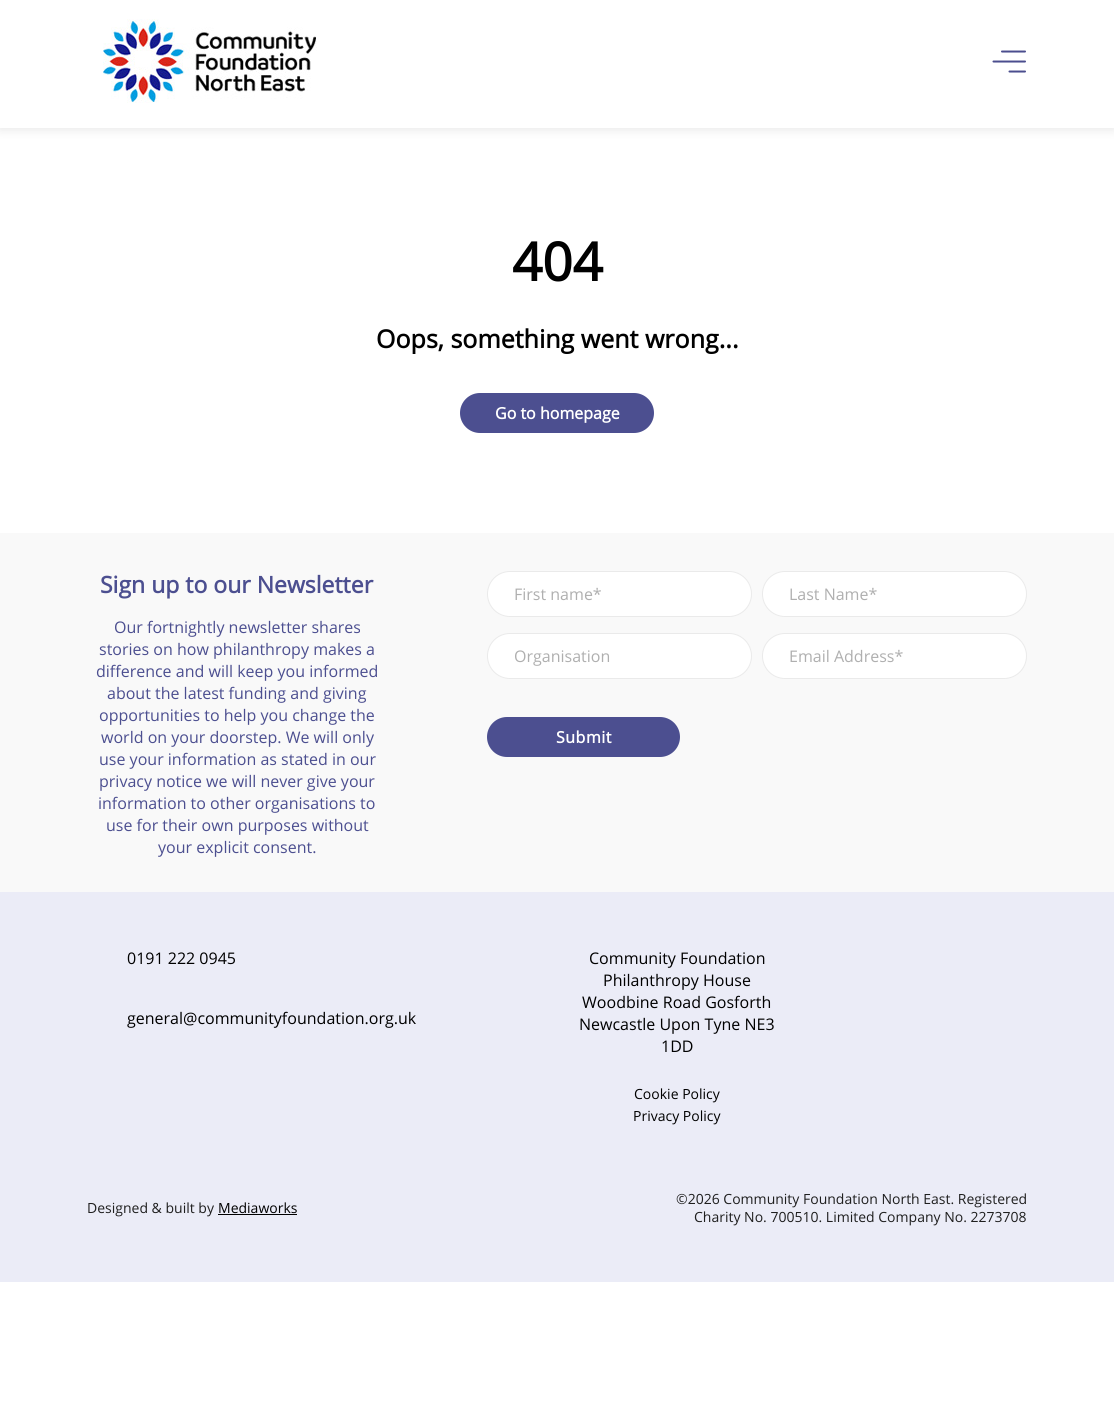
import math
import cairo

surface = cairo.ImageSurface(cairo.FORMAT_RGB24, 1114, 1402)
c = cairo.Context(surface)
options = cairo.FontOptions()
options.set_hint_metrics(cairo.HINT_METRICS_OFF)
options.set_hint_style(cairo.HINT_STYLE_NONE)
c.set_font_options(options)
c.set_miter_limit(4)
def C(code):
 c.set_source_rgb(*(v / 255 for v in bytes.fromhex(code[-6:])))
def F(family, size, italic, bold):
 c.select_font_face(family, cairo.FONT_SLANT_ITALIC if italic else cairo.FONT_SLANT_NORMAL, cairo.FONT_WEIGHT_BOLD if bold else cairo.FONT_WEIGHT_NORMAL)
 c.set_font_size(size)
def T(x, y, s):
 c.move_to(x, y)
 c.show_text(s)
def L(x, y, s, letter, word):
 c.move_to(x, y)
 for ch in s:
  c.show_text(ch)
  c.rel_move_to(letter + word * (ch == ' '), 0)
def R(x, y, w, h):
 c.rectangle(x, y, w, h)
 c.fill()
def Q(x, y, w, h, r):
 c.new_sub_path()
 for i, (u, v) in enumerate([(x + w - r, y + h - r), (x + r, y + h - r), (x + r, y + r), (x + w - r, y + r)]):
  c.arc(u, v, r, i * math.pi / 2, (i + 1) * math.pi / 2)
 c.close_path()
def S(x, y, w, h, r, blur, alpha):
 c.push_group_with_content(cairo.CONTENT_ALPHA)
 c.set_operator(cairo.OPERATOR_SOURCE)
 for i in range(15, -16, -2):
  e = blur * i / 6
  if min(w, h) + 2 * e > 0:
   c.set_source_rgba(0, 0, 0, alpha * math.erfc((i - 1) / 8.5) / 2)
   Q(x - e, y - e, w + 2 * e, h + 2 * e, max(0, min(r + e + blur * .6, min(w, h) / 2 + e)))
   c.fill()
 c.mask(c.pop_group())
def I(path, x, y, w, h):
 c.save()
 c.set_source_surface(cairo.ImageSurface.create_from_png(path), x, y)
 c.rectangle(x, y, w, h)
 c.fill()
 c.restore()
C('ffffff')
c.paint()
c.save()
c.rectangle(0,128,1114,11)
c.clip()
C('d1d1d1')
S(0,2,1114,128,0,5,.5)
c.restore()
I('1.png',103,19,214,84)
c.new_path()
c.move_to(1025,61.5)
c.line_to(993.5,61.5)
c.move_to(1025,71.5)
c.line_to(1009.5,71.5)
c.move_to(1025,51.5)
c.line_to(1002,51.5)
C('4b4e8e')
c.set_line_cap(cairo.LINE_CAP_ROUND)
c.set_line_join(cairo.LINE_JOIN_ROUND)
c.stroke()
F('Open Sans',53,0,1)
C('000000')
T(512,281,'404')
F('Open Sans',25,0,1)
T(376,348,'Oops, something went wrong...')
C('4c4f90')
Q(460,393,194,40,20)
c.fill()
F('Open Sans',16,0,1)
C('ffffff')
T(495,419,'Go to homepage')
C('f9f9f9')
R(0,533,1114,359)
F('Open Sans',23,0,1)
C('4c4f90')
T(100,593,'Sign up to our Newsletter')
F('Open Sans',16,0,0)
T(114,633,'Our fortnightly newsletter shares')
T(99,655,'stories on how philanthropy makes a')
T(96,677,'difference and will keep you informed')
T(107,699,'about the latest funding and giving')
T(99,721,'opportunities to help you change the')
T(101,743,'world on your doorstep. We will only')
T(99,765,'use your information as stated in our')
T(99,787,'privacy notice we will never give your')
T(98,809,'information to other organisations to')
T(106,831,'use for their own purposes without')
T(158,853,'your explicit consent.')
C('ffffff')
Q(487.5,571.5,264,45,22.5)
c.fill_preserve()
C('eaeaea')
c.set_line_width(1)
c.set_line_cap(cairo.LINE_CAP_BUTT)
c.set_line_join(cairo.LINE_JOIN_MITER)
c.stroke()
C('afafaf')
T(514,600,'First name*')
C('ffffff')
Q(762.5,571.5,264,45,22.5)
c.fill_preserve()
C('eaeaea')
c.stroke()
C('afafaf')
T(789,600,'Last Name*')
C('ffffff')
Q(487.5,633.5,264,45,22.5)
c.fill_preserve()
C('eaeaea')
c.stroke()
C('afafaf')
T(514,662,'Organisation')
C('ffffff')
Q(762.5,633.5,264,45,22.5)
c.fill_preserve()
C('eaeaea')
c.stroke()
C('afafaf')
T(789,662,'Email Address*')
C('4c4f90')
Q(487,717,193,40,20)
c.fill()
F('Open Sans',16,0,1)
C('ffffff')
L(556,743,'Submit',.5,0)
C('ebecf7')
R(0,892,1114,390)
F('Open Sans',16,0,0)
C('000000')
T(127,964,'0191 222 0945')
T(127,1024,'general@communityfoundation.org.uk')
T(589,964,'Community Foundation')
T(603,986,'Philanthropy House')
T(582,1008,'Woodbine Road Gosforth')
T(579,1030,'Newcastle Upon Tyne NE3')
T(661,1052,'1DD')
F('Open Sans',14,0,0)
T(634,1099,'Cookie Policy')
T(633,1121,'Privacy Policy')
C('1f1f1f')
T(87,1213,'Designed & built by')
C('000000')
T(218,1213,'Mediaworks')
R(218,1214,79,1)
C('1f1f1f')
T(676,1204,'©2026 Community Foundation North East. Registered')
T(694,1222,'Charity No. 700510. Limited Company No. 2273708')
surface.write_to_png('o.png')
